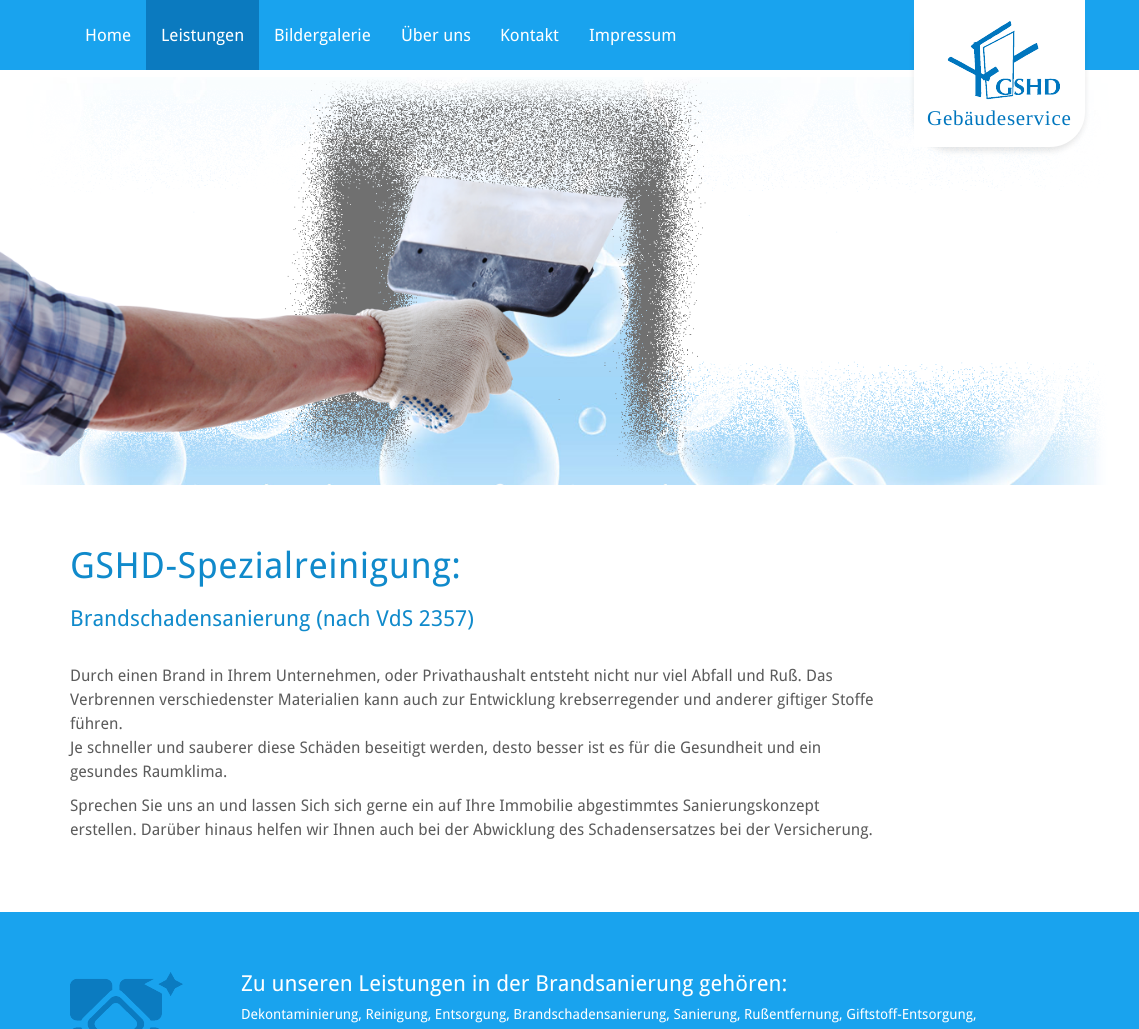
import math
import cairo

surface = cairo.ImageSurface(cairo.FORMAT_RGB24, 1139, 1029)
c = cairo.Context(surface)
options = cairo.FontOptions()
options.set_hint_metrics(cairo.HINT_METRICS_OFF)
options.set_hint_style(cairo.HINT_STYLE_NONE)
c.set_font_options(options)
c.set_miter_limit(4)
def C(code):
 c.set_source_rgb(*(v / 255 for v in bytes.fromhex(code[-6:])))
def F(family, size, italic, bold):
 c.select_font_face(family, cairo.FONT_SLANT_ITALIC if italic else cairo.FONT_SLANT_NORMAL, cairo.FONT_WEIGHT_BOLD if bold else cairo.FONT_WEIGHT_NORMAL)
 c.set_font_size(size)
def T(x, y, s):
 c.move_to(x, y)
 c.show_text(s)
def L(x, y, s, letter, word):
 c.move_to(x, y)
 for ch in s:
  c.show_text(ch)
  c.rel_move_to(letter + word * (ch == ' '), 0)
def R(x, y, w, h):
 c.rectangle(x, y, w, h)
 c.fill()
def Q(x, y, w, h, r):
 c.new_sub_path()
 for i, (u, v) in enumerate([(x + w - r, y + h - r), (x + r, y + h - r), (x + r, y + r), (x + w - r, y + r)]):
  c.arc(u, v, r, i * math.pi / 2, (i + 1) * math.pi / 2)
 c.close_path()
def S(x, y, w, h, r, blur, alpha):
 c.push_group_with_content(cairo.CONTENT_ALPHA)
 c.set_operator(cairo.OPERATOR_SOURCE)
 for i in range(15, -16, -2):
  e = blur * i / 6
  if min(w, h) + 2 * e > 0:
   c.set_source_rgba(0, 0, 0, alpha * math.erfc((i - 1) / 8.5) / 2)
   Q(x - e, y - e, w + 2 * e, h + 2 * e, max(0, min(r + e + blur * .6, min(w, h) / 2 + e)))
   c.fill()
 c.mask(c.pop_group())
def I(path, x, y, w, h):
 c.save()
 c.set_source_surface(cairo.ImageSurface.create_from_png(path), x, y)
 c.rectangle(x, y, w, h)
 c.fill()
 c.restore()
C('ffffff')
c.paint()
C('19a3ee')
R(0,0,1139,70)
F('Droid Sans',17,0,0)
C('ffffff')
T(85,41,'Home')
C('0b7abf')
R(146,0,113,70)
C('ffffff')
T(161,41,'Leistungen')
T(274,41,'Bildergalerie')
T(401,41,'Über uns')
T(500,41,'Kontakt')
T(589,41,'Impressum')
I('2.png',20,77,1089,408)
I('3.png',0,79,1109,393)
C('000000')
S(914,4,171,147,35,3,.1)
C('ffffff')
c.new_path()
c.move_to(914,0)
c.line_to(1085,0)
c.line_to(1085,112)
c.curve_to(1085,131.5,1069.5,147,1050,147)
c.line_to(914,147)
c.close_path()
c.fill()
I('1.png',947,21,113,79)
F('Liberation Serif',21,0,0)
C('0076be')
L(927,125,'Gebäudeservice',.75,0)
gradient = cairo.LinearGradient(1093,278,1139,278)
gradient.add_color_stop_rgba(0,1,1,1,0)
gradient.add_color_stop_rgba(.35,1,1,1,1)
gradient.add_color_stop_rgba(1,1,1,1,1)
c.set_source(gradient)
R(1096,365,13,120)
F('Droid Sans',36,0,0)
C('108acb')
L(70,578,'GSHD-Spezialreinigung:',.5,0)
F('Droid Sans',22,0,0)
T(70,626,'Brandschadensanierung (nach VdS 2357)')
F('Droid Sans',16,0,0)
C('5b5b5b')
T(70,681,'Durch einen Brand in Ihrem Unternehmen, oder Privathaushalt entsteht nicht nur viel Abfall und Ruß. Das')
T(70,705,'Verbrennen verschiedenster Materialien kann auch zur Entwicklung krebserregender und anderer giftiger Stoffe')
T(70,729,'führen.')
T(70,753,'Je schneller und sauberer diese Schäden beseitigt werden, desto besser ist es für die Gesundheit und ein')
T(70,777,'gesundes Raumklima.')
T(70,811,'Sprechen Sie uns an und lassen Sich sich gerne ein auf Ihre Immobilie abgestimmtes Sanierungskonzept')
T(70,835,'erstellen. Darüber hinaus helfen wir Ihnen auch bei der Abwicklung des Schadensersatzes bei der Versicherung.')
C('19a3ee')
R(0,912,1139,117)
I('4.png',70,972,113,57)
F('Droid Sans',22,0,0)
C('ffffff')
T(241,991,'Zu unseren Leistungen in der Brandsanierung gehören:')
F('Droid Sans',14,0,0)
T(241,1019,'Dekontaminierung, Reinigung, Entsorgung, Brandschadensanierung, Sanierung, Rußentfernung, Giftstoff-Entsorgung,')
surface.write_to_png('o.png')
